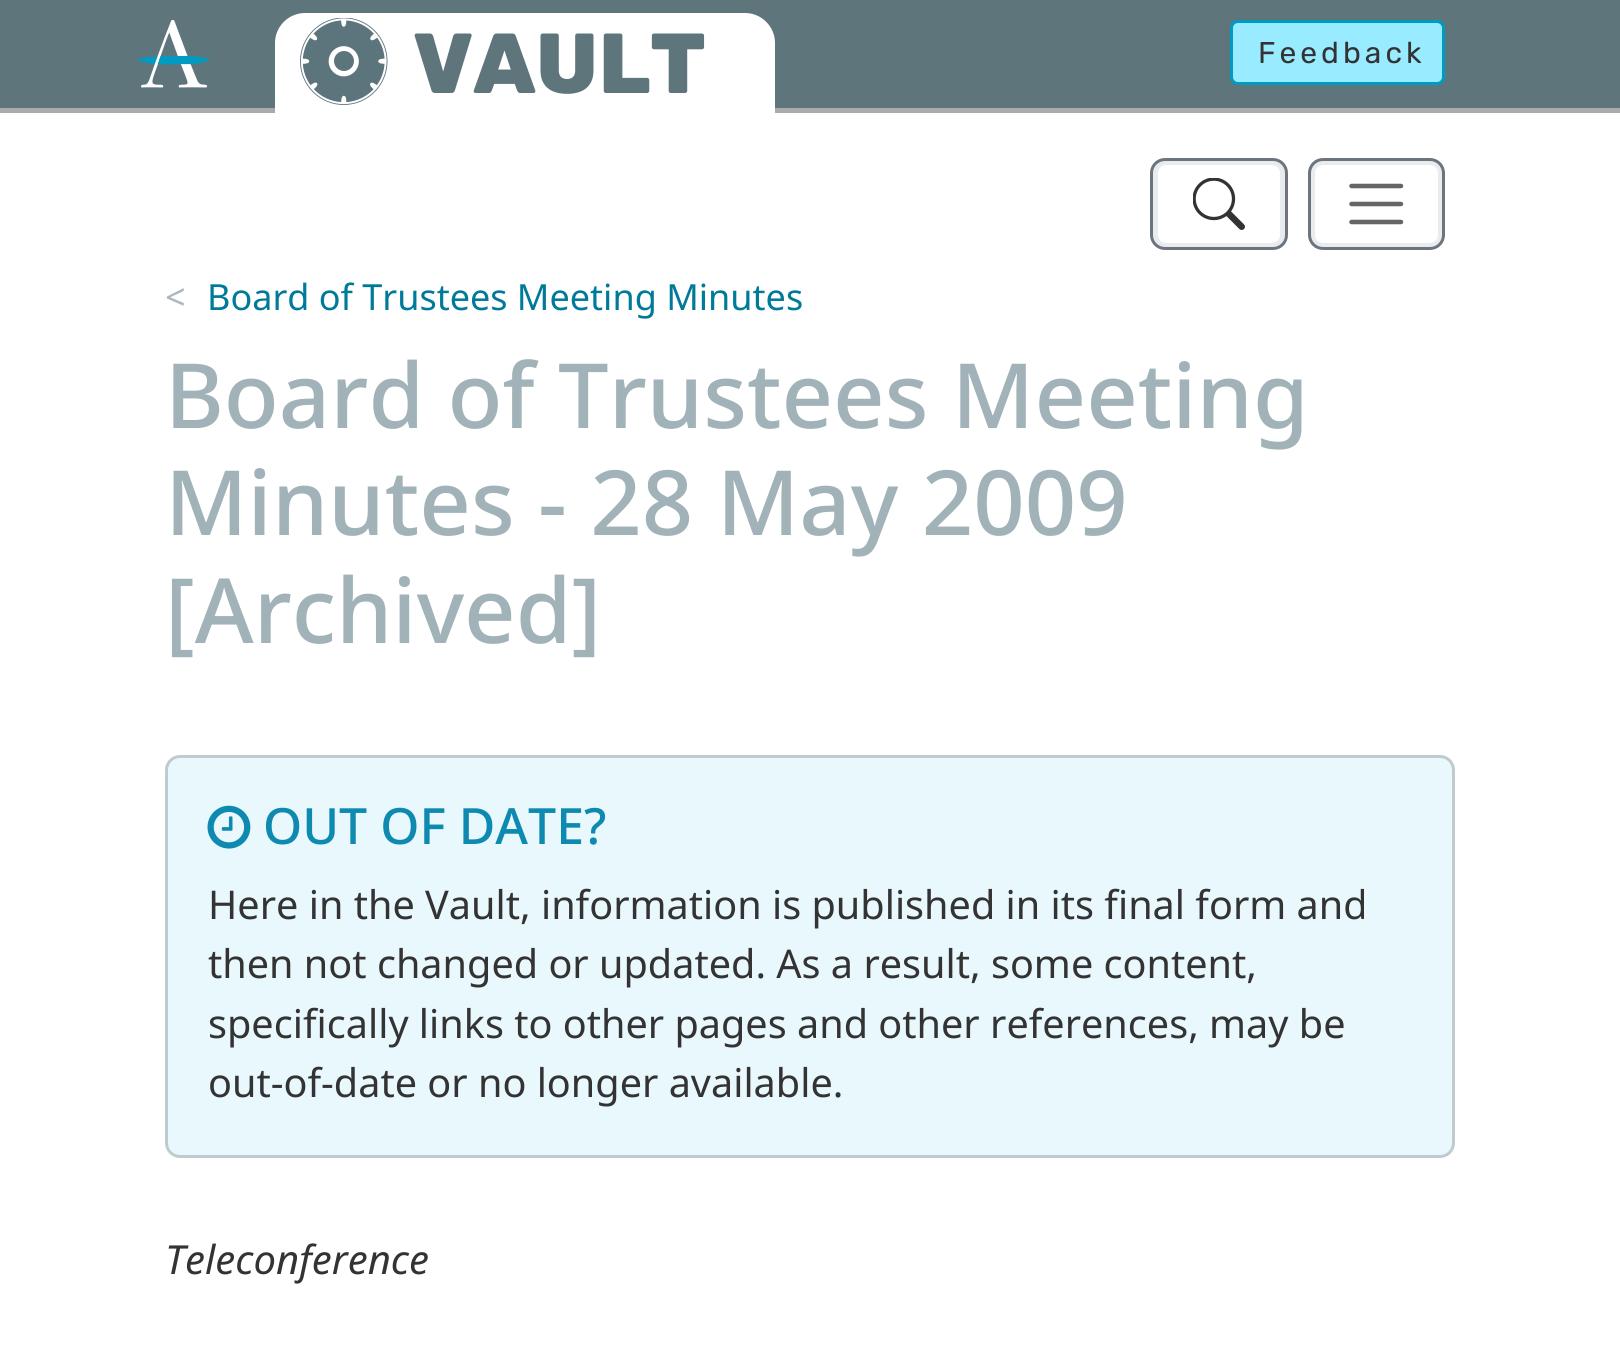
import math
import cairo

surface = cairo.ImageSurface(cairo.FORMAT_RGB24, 1620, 1370)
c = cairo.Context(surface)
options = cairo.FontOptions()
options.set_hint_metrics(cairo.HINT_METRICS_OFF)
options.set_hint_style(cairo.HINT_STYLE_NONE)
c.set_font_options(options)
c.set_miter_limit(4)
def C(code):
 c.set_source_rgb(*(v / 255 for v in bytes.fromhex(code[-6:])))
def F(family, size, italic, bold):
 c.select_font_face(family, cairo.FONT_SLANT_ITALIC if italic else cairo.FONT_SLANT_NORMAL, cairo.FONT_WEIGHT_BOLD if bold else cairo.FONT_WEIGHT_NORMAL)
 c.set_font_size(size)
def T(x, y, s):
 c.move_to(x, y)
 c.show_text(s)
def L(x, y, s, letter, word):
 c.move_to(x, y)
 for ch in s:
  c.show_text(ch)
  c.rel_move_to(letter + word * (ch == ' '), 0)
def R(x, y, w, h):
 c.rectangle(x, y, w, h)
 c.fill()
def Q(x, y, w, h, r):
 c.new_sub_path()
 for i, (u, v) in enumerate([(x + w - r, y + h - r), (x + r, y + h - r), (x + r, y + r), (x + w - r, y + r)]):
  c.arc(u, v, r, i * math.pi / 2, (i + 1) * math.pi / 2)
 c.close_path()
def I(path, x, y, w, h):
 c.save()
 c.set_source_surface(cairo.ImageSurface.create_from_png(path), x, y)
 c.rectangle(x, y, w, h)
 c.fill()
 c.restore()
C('ffffff')
c.paint()
C('5e757c')
R(0,0,1620,108)
C('aaaaaa')
R(0,108,1620,5)
I('1.png',138,20,72,68)
C('ffffff')
c.new_path()
c.move_to(305,13)
c.line_to(745,13)
c.curve_to(761.5,13,775,26.5,775,43)
c.line_to(775,118)
c.line_to(275,118)
c.line_to(275,43)
c.curve_to(275,26.5,288.5,13,305,13)
c.close_path()
c.fill()
I('2.png',300,18,88,87)
F('Rubik ExtraBold',85,0,0)
C('5e757c')
T(413,93,'VAULT')
C('99ebff')
Q(1231.5,21.5,212,62,6.5)
c.fill_preserve()
C('009bc2')
c.set_line_width(3)
c.stroke()
F('Rubik',30,0,0)
C('333333')
L(1258,63,'Feedback',4,0)
Q(1155.5,162.5,127,83,10.5)
C('e9ecef')
c.set_line_width(5)
c.stroke()
Q(1151.5,159.5,135,89,13.5)
C('6c757d')
c.set_line_width(3)
c.stroke()
I('3.png',1193,178,52,52)
Q(1312.5,162.5,128,83,10.5)
C('e9ecef')
c.set_line_width(5)
c.stroke()
Q(1309.5,159.5,134,89,13.5)
C('6c757d')
c.set_line_width(3)
c.stroke()
c.new_path()
c.move_to(1351.5,186)
c.line_to(1401,186)
c.move_to(1351.5,204)
c.line_to(1401,204)
c.move_to(1351.5,222)
c.line_to(1401,222)
C('666666')
c.set_line_width(4.5)
c.set_line_cap(cairo.LINE_CAP_ROUND)
c.stroke()
F('Noto Sans',36,0,0)
C('adb5bd')
T(165,310,'<')
C('007a99')
T(207,310,'Board of Trustees Meeting Minutes')
F('Noto Sans Medium',90,0,0)
C('a1b3b8')
T(165,428,'Board of Trustees Meeting')
T(165,535,'Minutes - 28 May 2009')
T(165,643,'[Archived]')
C('e9f8fd')
Q(165,755,1290,403,15)
c.fill()
Q(166.5,756.5,1287,400,13.5)
c.set_source_rgba(0,0,0,0.18)
c.set_line_width(3)
c.set_line_cap(cairo.LINE_CAP_BUTT)
c.stroke()
I('4.png',207,805,44,44)
F('Noto Sans Medium',50,0,0)
C('0e89b0')
T(263,844,'OUT OF DATE?')
F('Noto Sans',39.6,0,0)
C('333333')
T(208,919,'Here in the Vault, information is published in its final form and')
T(208,978,'then not changed or updated. As a result, some content,')
T(208,1038,'specifically links to other pages and other references, may be')
T(208,1097,'out-of-date or no longer available.')
F('Noto Sans',40,1,0)
T(165,1274,'Teleconference')
surface.write_to_png('o.png')
